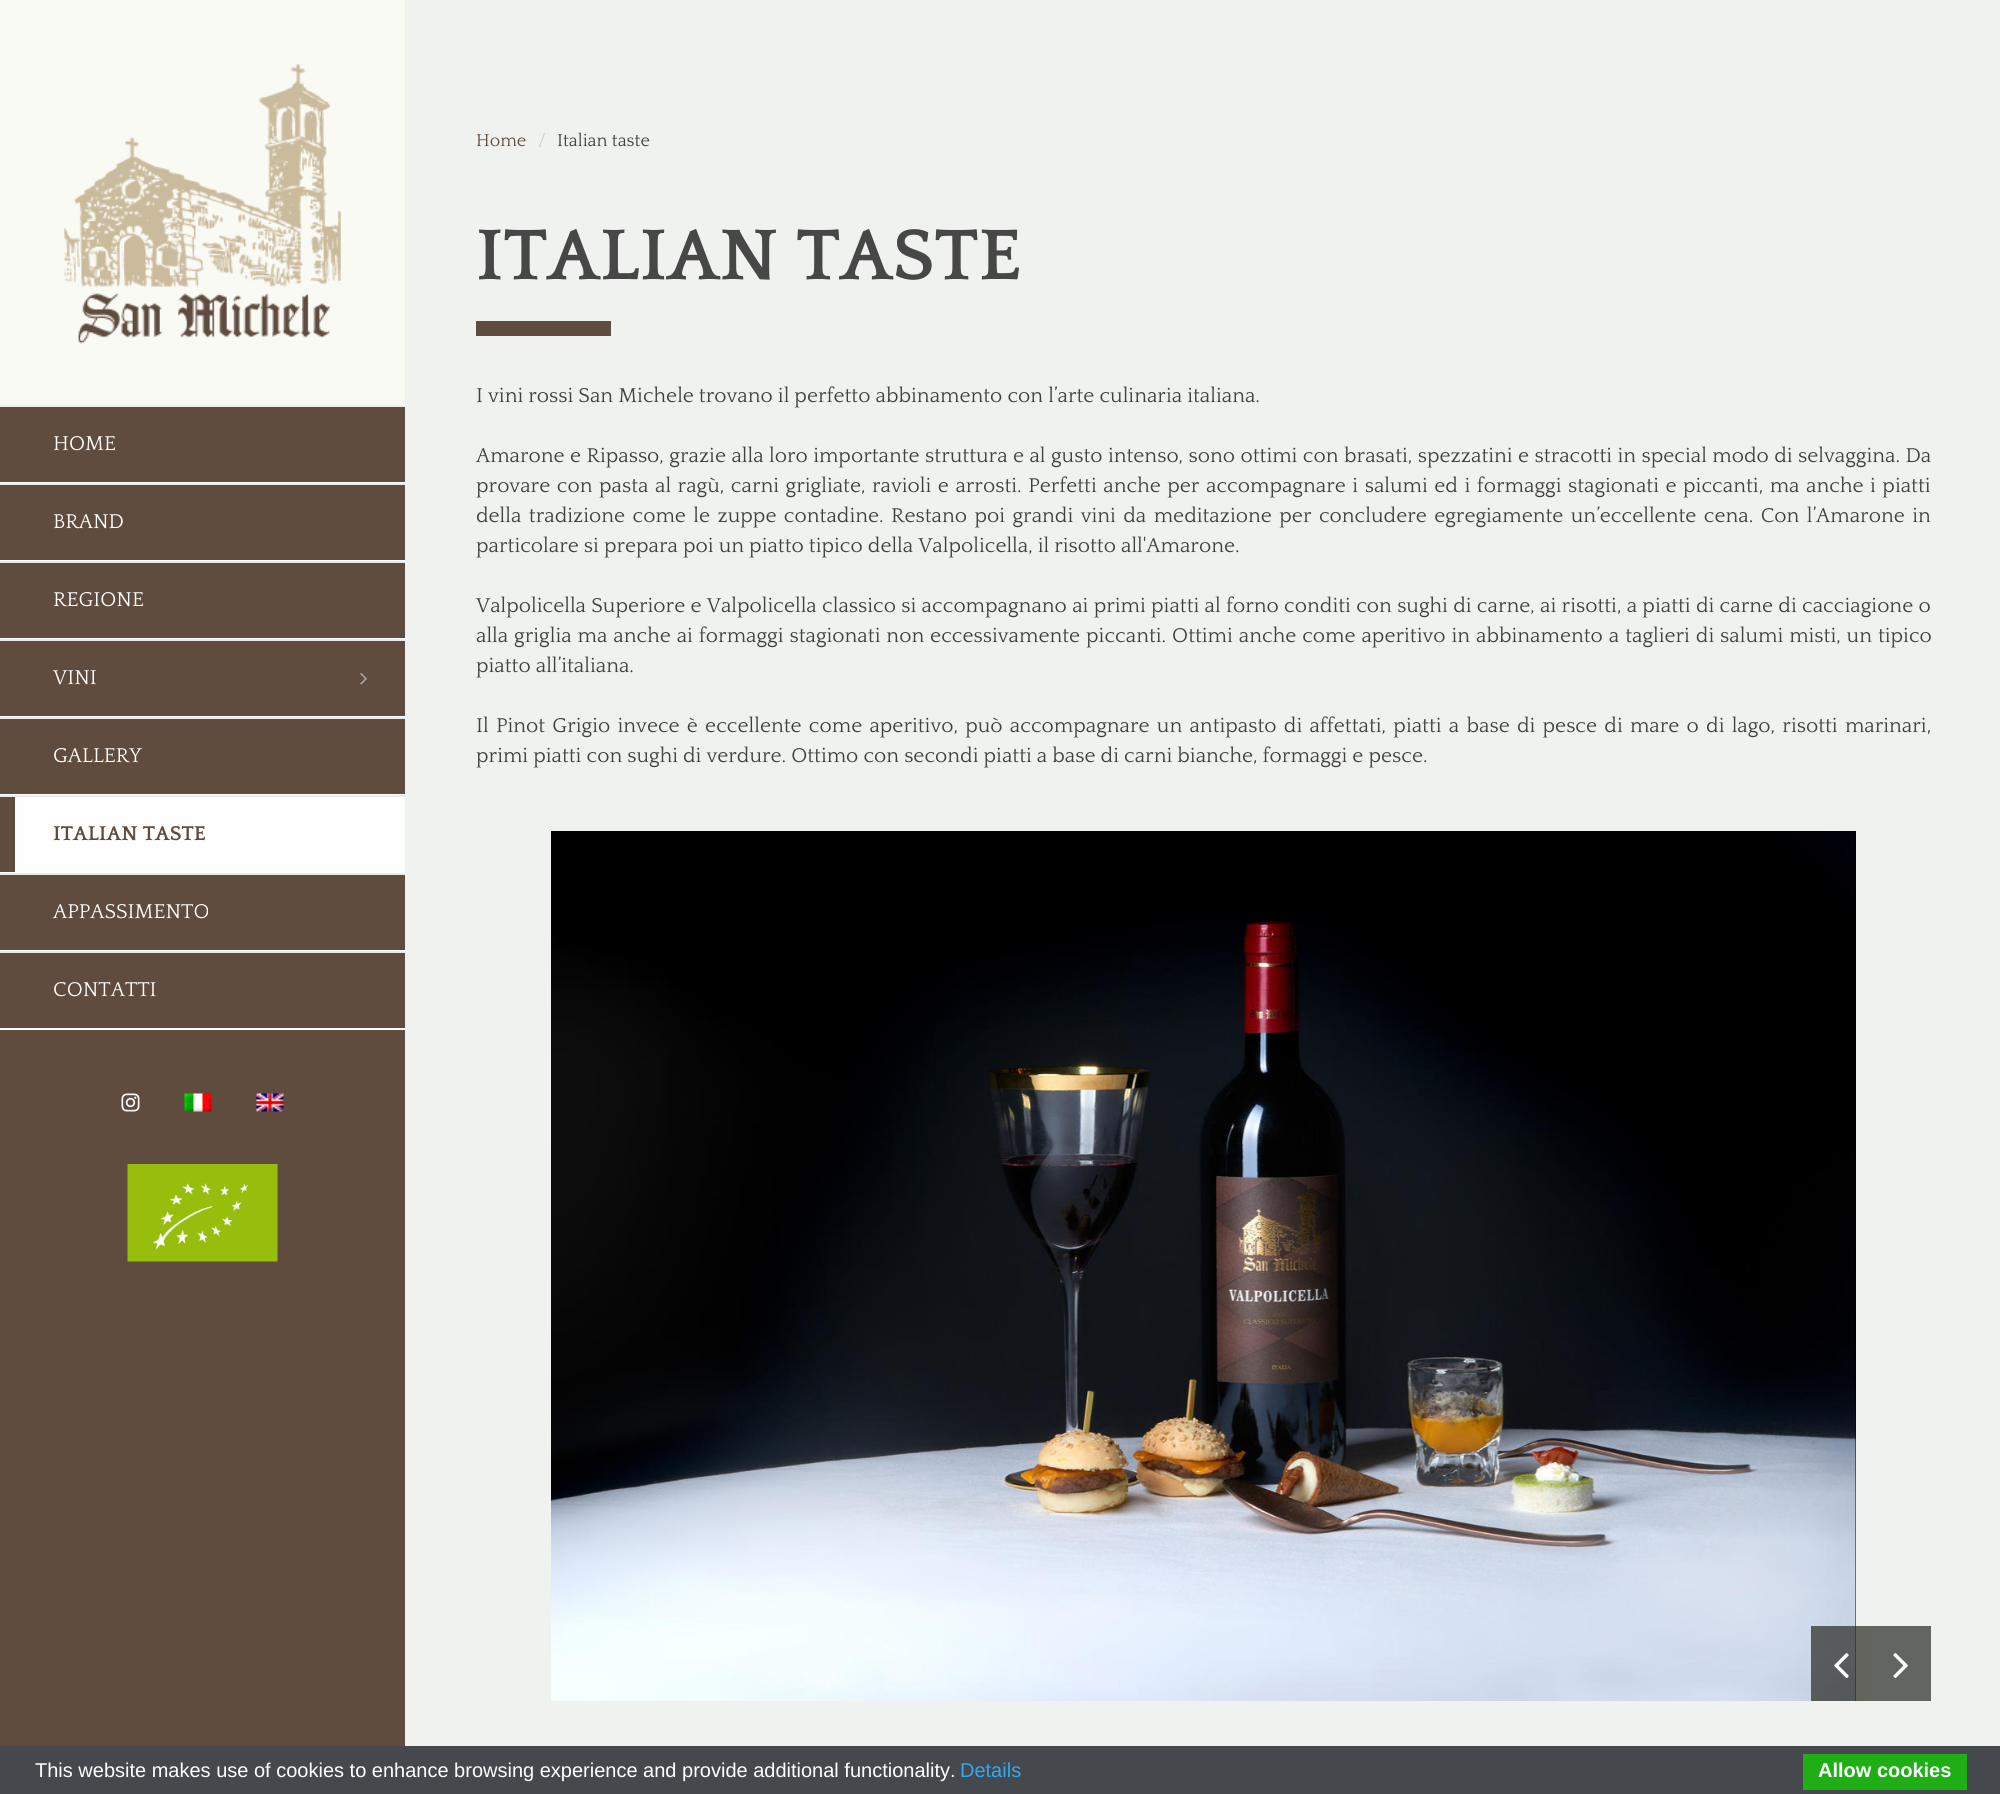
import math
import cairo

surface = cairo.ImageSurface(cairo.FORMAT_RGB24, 2000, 1794)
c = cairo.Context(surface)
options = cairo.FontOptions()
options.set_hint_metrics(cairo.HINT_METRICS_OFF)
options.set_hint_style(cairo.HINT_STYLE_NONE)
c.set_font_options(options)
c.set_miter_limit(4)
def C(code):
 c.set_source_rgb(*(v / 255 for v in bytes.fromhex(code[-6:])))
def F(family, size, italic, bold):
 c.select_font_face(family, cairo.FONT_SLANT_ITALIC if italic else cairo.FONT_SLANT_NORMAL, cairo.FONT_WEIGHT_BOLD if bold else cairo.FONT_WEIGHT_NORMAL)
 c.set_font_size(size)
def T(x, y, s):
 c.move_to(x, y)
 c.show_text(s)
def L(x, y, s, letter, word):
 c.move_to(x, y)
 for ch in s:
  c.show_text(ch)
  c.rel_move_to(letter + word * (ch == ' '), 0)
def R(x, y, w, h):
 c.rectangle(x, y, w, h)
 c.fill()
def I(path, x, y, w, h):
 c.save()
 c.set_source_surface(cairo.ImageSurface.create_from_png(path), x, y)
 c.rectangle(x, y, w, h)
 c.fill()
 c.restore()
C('f0f2ef')
c.paint()
C('604c3e')
R(0,407,405,1339)
C('fafaf5')
R(0,0,405,405)
I('1.png',64,64,277,280)
C('efefef')
R(0,405,405,2)
C('ffffff')
R(0,482,405,1)
F('Quattrocento',21,0,0)
T(53,450,'HOME')
C('ebebeb')
R(0,483,405,2)
C('ffffff')
R(0,560,405,1)
T(53,528,'BRAND')
C('ebebeb')
R(0,561,405,2)
C('ffffff')
R(0,638,405,1)
T(53,606,'REGIONE')
C('ebebeb')
R(0,639,405,2)
C('ffffff')
R(0,716,405,1)
T(53,684,'VINI')
I('2.png',360,673,7,12)
C('ebebeb')
R(0,717,405,2)
C('ffffff')
R(0,794,405,1)
T(53,762,'GALLERY')
C('ebebeb')
R(0,795,405,2)
C('ffffff')
R(0,872,405,1)
C('fefefe')
R(15,797,390,75)
F('Quattrocento',21,0,1)
C('604c3e')
T(53,840,'ITALIAN TASTE')
C('ebebeb')
R(0,873,405,2)
C('ffffff')
R(0,950,405,1)
F('Quattrocento',21,0,0)
T(53,918,'APPASSIMENTO')
C('ebebeb')
R(0,951,405,2)
C('ffffff')
R(0,1028,405,2)
T(53,996,'CONTATTI')
I('3.png',121,1093,19,19)
I('4.png',184,1093,28,19)
I('5.png',256,1093,28,19)
I('6.png',127,1164,151,98)
F('Quattrocento',18,0,0)
C('604c3e')
T(476,146,'Home')
C('cccccc')
T(538,146,'/')
C('404040')
T(557,146,'Italian taste')
F('Quattrocento',75,0,1)
C('474747')
T(476,279,'ITALIAN TASTE')
C('604c3e')
R(476,321,135,15)
F('Quattrocento',21,0,0)
C('404040')
T(476,402,'I vini rossi San Michele trovano il perfetto abbinamento con l’arte culinaria italiana.')
L(476,462,'Amarone e Ripasso, grazie alla loro importante struttura e al gusto intenso, sono ottimi con brasati, spezzatini e stracotti in special modo di selvaggina. Da',0,.4)
L(476,492,'provare con pasta al ragù, carni grigliate, ravioli e arrosti. Perfetti anche per accompagnare i salumi ed i formaggi stagionati e piccanti, ma anche i piatti',0,1.5)
L(476,522,'della tradizione come le zuppe contadine. Restano poi grandi vini da meditazione per concludere egregiamente un’eccellente cena. Con l’Amarone in',0,2.4)
T(476,552,'particolare si prepara poi un piatto tipico della Valpolicella, il risotto all\'Amarone.')
L(476,612,'Valpolicella Superiore e Valpolicella classico si accompagnano ai primi piatti al forno conditi con sughi di carne, ai risotti, a piatti di carne di cacciagione o',0,.25)
L(476,642,'alla griglia ma anche ai formaggi stagionati non eccessivamente piccanti. Ottimi anche come aperitivo in abbinamento a taglieri di salumi misti, un tipico',0,.9)
T(476,672,'piatto all’italiana.')
L(476,732,'Il Pinot Grigio invece è eccellente come aperitivo, può accompagnare un antipasto di affettati, piatti a base di pesce di mare o di lago, risotti marinari,',0,2.2)
T(476,762,'primi piatti con sughi di verdure. Ottimo con secondi piatti a base di carni bianche, formaggi e pesce.')
C('000000')
R(1855,831,1,870)
I('7.png',551,831,1305,870)
c.set_source_rgba(0.153,0.157,0.133,0.7)
R(1811,1626,60,75)
I('8.png',1834,1653,15,25)
C('636560')
R(1871,1626,60,75)
I('9.png',1893,1653,15,25)
C('45484d')
R(0,1746,2000,48)
F('Liberation Sans',20,0,0)
C('ffffff')
T(35,1777,'This website makes use of cookies to enhance browsing experience and provide additional functionality.')
C('31a8f0')
T(960,1777,'Details')
C('1fae16')
R(1803,1754,164,36)
F('Liberation Sans',20,0,1)
C('ffffff')
T(1818,1777,'Allow cookies')
surface.write_to_png('o.png')
